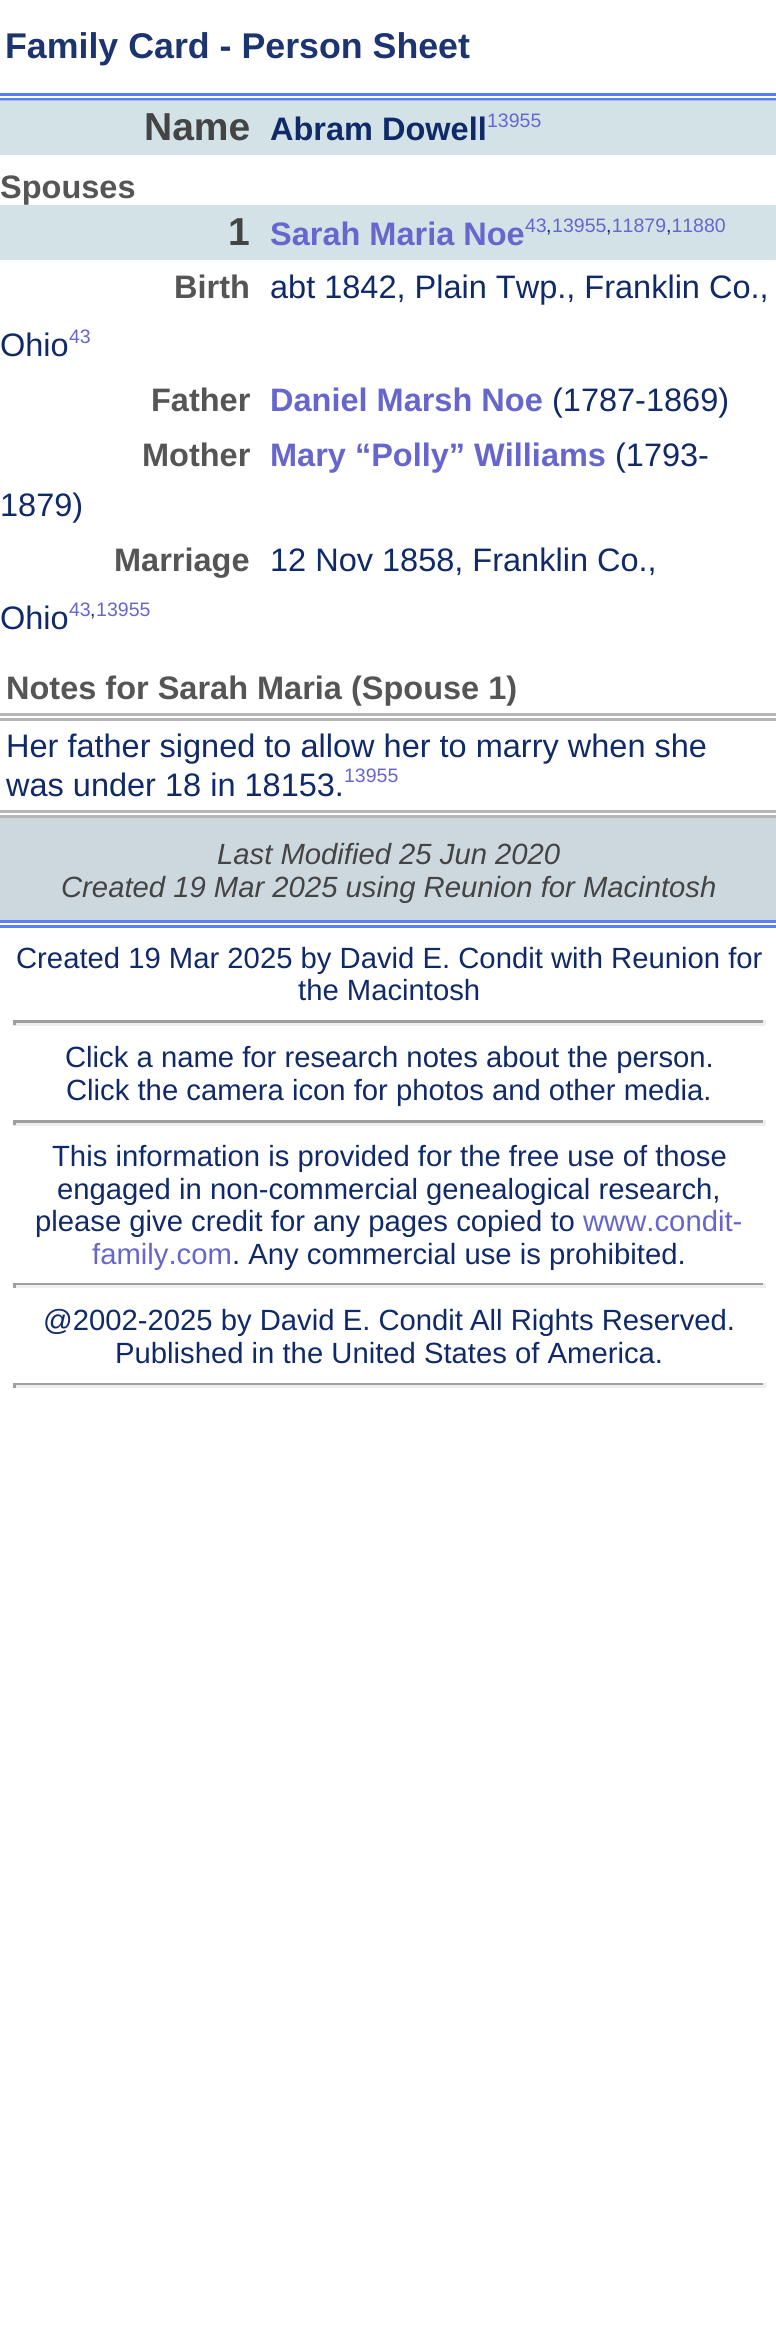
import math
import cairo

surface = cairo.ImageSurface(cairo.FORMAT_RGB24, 776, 2332)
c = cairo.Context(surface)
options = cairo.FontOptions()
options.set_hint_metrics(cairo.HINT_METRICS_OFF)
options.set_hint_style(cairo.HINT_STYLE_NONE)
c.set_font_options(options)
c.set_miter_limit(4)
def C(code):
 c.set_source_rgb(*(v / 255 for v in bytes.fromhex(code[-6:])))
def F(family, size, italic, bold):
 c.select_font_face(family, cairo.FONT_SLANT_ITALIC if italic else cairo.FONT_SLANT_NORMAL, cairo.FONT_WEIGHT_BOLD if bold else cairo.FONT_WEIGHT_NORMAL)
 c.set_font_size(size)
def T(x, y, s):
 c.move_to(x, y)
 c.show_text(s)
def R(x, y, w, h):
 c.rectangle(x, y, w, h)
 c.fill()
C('ffffff')
c.paint()
C('d2e2e7')
R(0,101,776,54)
F('Liberation Sans',35.75,0,1)
C('1c3571')
T(5,58,'Family Card - Person Sheet')
C('567efc')
R(0,93,776,3)
R(0,98,776,2)
C('a0bce6')
R(0,100,776,1)
C('567efc')
R(0,920,776,3)
R(0,925,776,3)
F('Liberation Sans',39,0,1)
C('444444')
T(144,140,'Name')
F('Liberation Sans',32.5,0,1)
C('102a69')
T(270,140,'Abram Dowell')
F('Liberation Sans',19.5,0,0)
C('6666cc')
T(487,127,'13955')
F('Liberation Sans',32.5,0,1)
C('555555')
T(0,198,'Spouses')
C('d2e2e7')
R(0,205,776,55)
F('Liberation Sans',39,0,1)
C('444444')
T(228,245,'1')
F('Liberation Sans',32.5,0,1)
C('6666cc')
T(270,245,'Sarah Maria Noe')
F('Liberation Sans',19.5,0,0)
T(525,232,'43 13955 11879 11880')
C('102a69')
T(546,232,',')
T(606,232,',')
T(666,232,',')
F('Liberation Sans',32.5,0,1)
C('555555')
T(174,298,'Birth')
F('Liberation Sans',32.5,0,0)
C('102a69')
T(270,298,'abt 1842, Plain Twp., Franklin Co.,')
T(0,356,'Ohio')
F('Liberation Sans',19.5,0,0)
C('6666cc')
T(69,343,'43')
F('Liberation Sans',32.5,0,1)
C('555555')
T(151,411,'Father')
C('6666cc')
T(270,411,'Daniel Marsh Noe')
F('Liberation Sans',32.5,0,0)
C('102a69')
T(552,411,'(1787-1869)')
F('Liberation Sans',32.5,0,1)
C('555555')
T(142,466,'Mother')
C('6666cc')
T(270,466,'Mary “Polly” Williams')
F('Liberation Sans',32.5,0,0)
C('102a69')
T(615,466,'(1793-')
T(0,516,'1879)')
F('Liberation Sans',32.5,0,1)
C('555555')
T(114,571,'Marriage')
F('Liberation Sans',32.5,0,0)
C('102a69')
T(270,571,'12 Nov 1858, Franklin Co.,')
T(0,629,'Ohio')
F('Liberation Sans',19.5,0,0)
C('6666cc')
T(69,616,'43 13955')
C('102a69')
T(90,616,',')
F('Liberation Sans',32.5,0,1)
C('555555')
T(6,699,'Notes for Sarah Maria (Spouse 1)')
C('b5b5b5')
R(0,713,776,3)
R(0,718,776,3)
R(0,810,776,3)
R(0,815,776,3)
F('Liberation Sans',32.5,0,0)
C('102a69')
T(6,757,'Her father signed to allow her to marry when she')
T(6,796,'was under 18 in 18153.')
F('Liberation Sans',19.5,0,0)
C('6666cc')
T(344,782,'13955')
C('cdd8de')
R(0,818,776,102)
F('Liberation Sans',29.25,1,0)
C('444444')
T(217,864,'Last Modified 25 Jun 2020')
T(61,897,'Created 19 Mar 2025 using Reunion for Macintosh')
F('Liberation Sans',29.25,0,0)
C('102a69')
T(16,968,'Created 19 Mar 2025 by David E. Condit with Reunion for')
T(298,1000,'the Macintosh')
C('9f9f9f')
R(13,1020,752,3)
C('eeeeee')
R(763,1020,3,5)
R(13,1023,752,3)
C('9f9f9f')
R(13,1020,3,5)
C('102a69')
T(65,1067,'Click a name for research notes about the person.')
T(66,1100,'Click the camera icon for photos and other media.')
C('9f9f9f')
R(13,1120,752,3)
C('eeeeee')
R(763,1120,3,5)
R(13,1123,752,3)
C('9f9f9f')
R(13,1120,3,5)
C('102a69')
T(52,1166,'This information is provided for the free use of those')
T(57,1199,'engaged in non-commercial genealogical research,')
T(35,1231,'please give credit for any pages copied to')
C('6666cc')
T(583,1231,'www.condit-')
T(92,1264,'family.com')
C('102a69')
T(232,1264,'. Any commercial use is prohibited.')
C('9f9f9f')
R(13,1283,752,2)
C('eeeeee')
R(763,1283,3,5)
R(13,1285,752,3)
C('9f9f9f')
R(13,1283,3,5)
C('102a69')
T(43,1330,'@2002-2025 by David E. Condit')
T(470,1330,'All Rights Reserved.')
T(115,1363,'Published in the United States of America.')
C('9f9f9f')
R(13,1383,752,2)
C('eeeeee')
R(763,1383,3,5)
R(13,1385,752,3)
C('9f9f9f')
R(13,1383,3,5)
surface.write_to_png('o.png')
